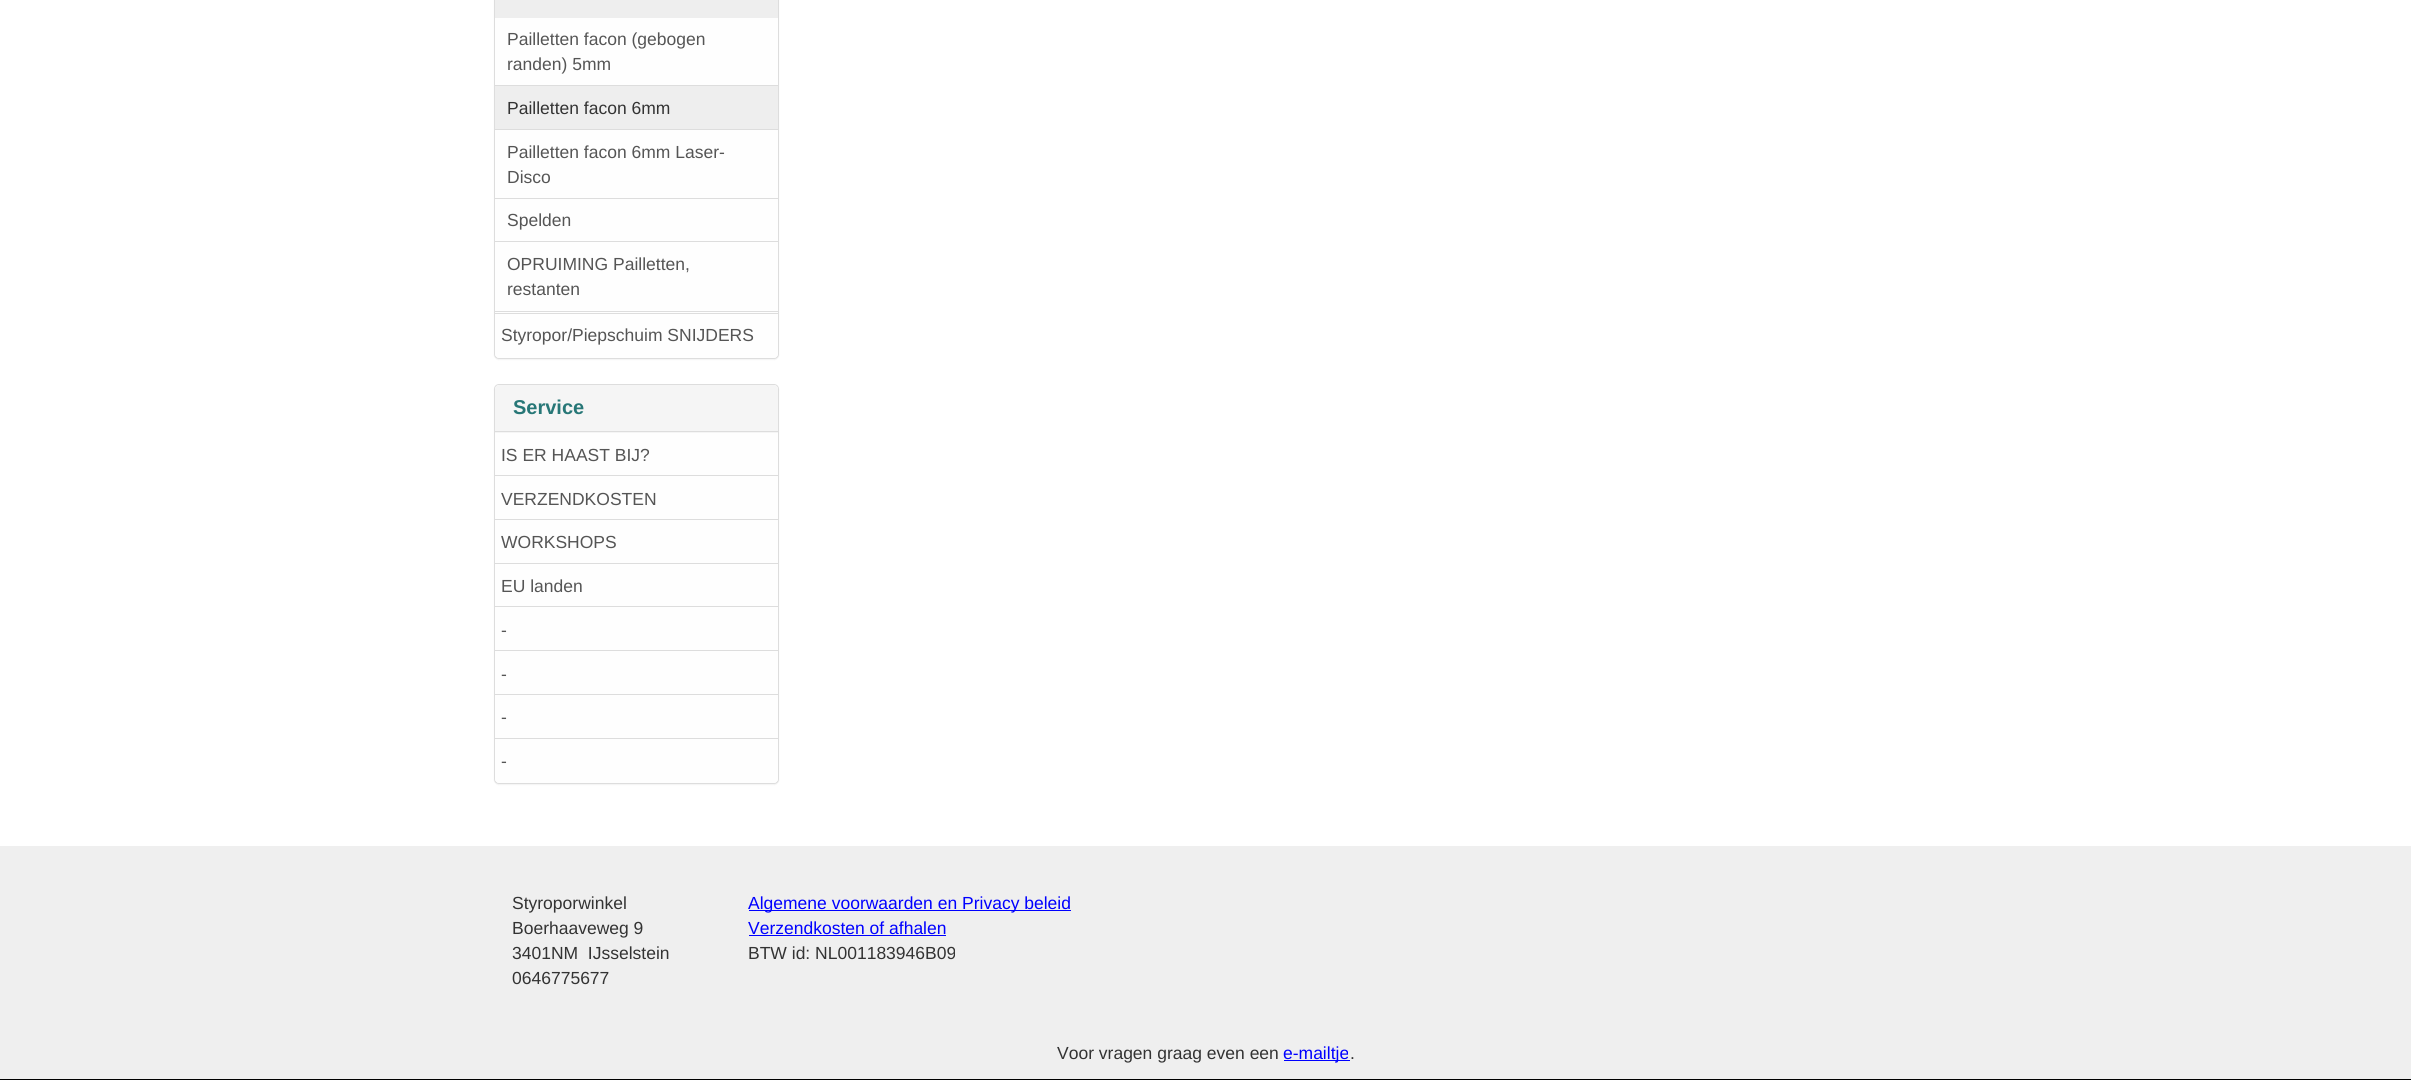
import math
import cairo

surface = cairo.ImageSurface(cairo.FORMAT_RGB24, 2411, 1080)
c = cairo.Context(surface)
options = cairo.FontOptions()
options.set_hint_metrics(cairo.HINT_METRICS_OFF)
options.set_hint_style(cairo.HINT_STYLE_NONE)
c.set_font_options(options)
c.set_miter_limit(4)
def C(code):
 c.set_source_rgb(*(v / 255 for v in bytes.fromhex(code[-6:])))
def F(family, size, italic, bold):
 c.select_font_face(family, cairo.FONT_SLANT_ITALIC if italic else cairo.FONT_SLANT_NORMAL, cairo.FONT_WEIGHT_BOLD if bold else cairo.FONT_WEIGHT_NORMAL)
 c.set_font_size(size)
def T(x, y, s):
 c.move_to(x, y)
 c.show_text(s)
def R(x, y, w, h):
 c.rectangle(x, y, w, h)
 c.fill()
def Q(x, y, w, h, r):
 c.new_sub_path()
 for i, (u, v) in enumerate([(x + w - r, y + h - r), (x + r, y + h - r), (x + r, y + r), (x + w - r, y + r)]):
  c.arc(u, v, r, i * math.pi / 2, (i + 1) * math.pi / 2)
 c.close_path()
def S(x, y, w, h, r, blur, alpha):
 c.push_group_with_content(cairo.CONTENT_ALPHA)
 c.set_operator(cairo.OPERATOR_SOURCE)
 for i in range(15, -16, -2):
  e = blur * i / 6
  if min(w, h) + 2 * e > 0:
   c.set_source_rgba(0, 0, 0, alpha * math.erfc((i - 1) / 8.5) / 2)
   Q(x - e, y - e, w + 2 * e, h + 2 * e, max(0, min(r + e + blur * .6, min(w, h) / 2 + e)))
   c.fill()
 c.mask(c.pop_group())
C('ffffff')
c.paint()
C('000000')
S(494,-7,285,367,5,.5,.05)
C('fefefe')
Q(494.5,-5.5,284,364,4.5)
c.fill_preserve()
C('dddddd')
c.set_line_width(1)
c.stroke()
C('eeeeee')
R(495,0,283,18)
C('dddddd')
R(495,311,283,1)
F('Liberation Sans',17.5,0,0)
C('555555')
T(507,45,'Pailletten facon (gebogen')
T(507,70,'randen) 5mm')
C('eeeeee')
R(495,86,283,43)
C('dddddd')
R(495,85,283,1)
C('333333')
T(507,114,'Pailletten facon 6mm')
C('dddddd')
R(495,129,283,1)
C('555555')
T(507,158,'Pailletten facon 6mm Laser-')
T(507,183,'Disco')
C('dddddd')
R(495,198,283,1)
C('555555')
T(507,226,'Spelden')
C('dddddd')
R(495,241,283,1)
C('555555')
T(507,270,'OPRUIMING Pailletten,')
T(507,295,'restanten')
C('fefefe')
c.new_path()
c.move_to(495,313)
c.line_to(778,313)
c.line_to(778,353)
c.curve_to(778,356,776,358,773,358)
c.line_to(500,358)
c.curve_to(497,358,495,356,495,353)
c.close_path()
c.fill()
C('dddddd')
R(495,313,283,1)
C('555555')
T(501,341,'Styropor/Piepschuim SNIJDERS')
C('000000')
S(494,385,285,400,5,.5,.05)
C('fefefe')
Q(494.5,384.5,284,399,4.5)
c.fill_preserve()
C('dddddd')
c.stroke()
C('f5f5f5')
c.new_path()
c.move_to(499,385)
c.line_to(774,385)
c.curve_to(776,385,778,387,778,389)
c.line_to(778,433)
c.line_to(495,433)
c.line_to(495,389)
c.curve_to(495,387,497,385,499,385)
c.close_path()
c.fill()
C('dddddd')
R(495,431,283,1)
F('Liberation Sans',20,0,1)
C('277777')
T(513,414,'Service')
F('Liberation Sans',17.5,0,0)
C('555555')
T(501,461,'IS ER HAAST BIJ?')
C('dddddd')
R(495,475,283,1)
C('555555')
T(501,505,'VERZENDKOSTEN')
C('dddddd')
R(495,519,283,1)
C('555555')
T(501,548,'WORKSHOPS')
C('dddddd')
R(495,563,283,1)
C('555555')
T(501,592,'EU landen')
C('dddddd')
R(495,606,283,1)
C('555555')
T(501,636,'-')
C('dddddd')
R(495,650,283,1)
C('555555')
T(501,680,'-')
C('dddddd')
R(495,694,283,1)
C('555555')
T(501,723,'-')
C('fefefe')
c.new_path()
c.move_to(495,738)
c.line_to(778,738)
c.line_to(778,778)
c.curve_to(778,781,776,783,773,783)
c.line_to(500,783)
c.curve_to(497,783,495,781,495,778)
c.close_path()
c.fill()
C('dddddd')
R(495,738,283,1)
C('555555')
T(501,767,'-')
C('efefef')
R(0,846,2411,233)
C('333333')
T(512,909,'Styroporwinkel')
T(512,934,'Boerhaaveweg 9')
T(512,959,'3401NM  IJsselstein')
T(512,984,'0646775677')
C('0000ff')
R(749,910,322,1)
T(748,909,'Algemene voorwaarden en Privacy beleid')
T(748,934,'Verzendkosten of afhalen')
R(749,935,197,1)
C('333333')
T(748,959,'BTW id: NL001183946B09')
T(1057,1059,'Voor vragen graag even een')
C('0000ff')
R(1284,1060,66,1)
T(1283,1059,'e-mailtje')
C('333333')
T(1350,1059,'.')
C('000000')
R(0,1079,2411,1)
surface.write_to_png('o.png')
